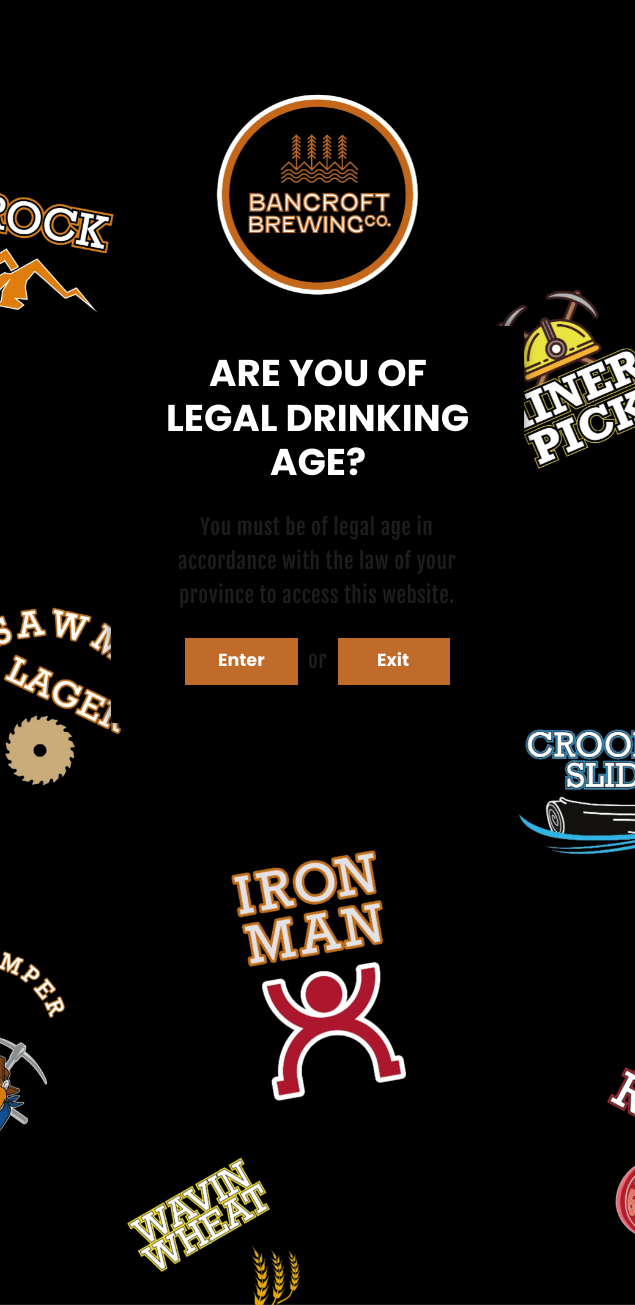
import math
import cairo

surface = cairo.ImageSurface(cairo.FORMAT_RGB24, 635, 1305)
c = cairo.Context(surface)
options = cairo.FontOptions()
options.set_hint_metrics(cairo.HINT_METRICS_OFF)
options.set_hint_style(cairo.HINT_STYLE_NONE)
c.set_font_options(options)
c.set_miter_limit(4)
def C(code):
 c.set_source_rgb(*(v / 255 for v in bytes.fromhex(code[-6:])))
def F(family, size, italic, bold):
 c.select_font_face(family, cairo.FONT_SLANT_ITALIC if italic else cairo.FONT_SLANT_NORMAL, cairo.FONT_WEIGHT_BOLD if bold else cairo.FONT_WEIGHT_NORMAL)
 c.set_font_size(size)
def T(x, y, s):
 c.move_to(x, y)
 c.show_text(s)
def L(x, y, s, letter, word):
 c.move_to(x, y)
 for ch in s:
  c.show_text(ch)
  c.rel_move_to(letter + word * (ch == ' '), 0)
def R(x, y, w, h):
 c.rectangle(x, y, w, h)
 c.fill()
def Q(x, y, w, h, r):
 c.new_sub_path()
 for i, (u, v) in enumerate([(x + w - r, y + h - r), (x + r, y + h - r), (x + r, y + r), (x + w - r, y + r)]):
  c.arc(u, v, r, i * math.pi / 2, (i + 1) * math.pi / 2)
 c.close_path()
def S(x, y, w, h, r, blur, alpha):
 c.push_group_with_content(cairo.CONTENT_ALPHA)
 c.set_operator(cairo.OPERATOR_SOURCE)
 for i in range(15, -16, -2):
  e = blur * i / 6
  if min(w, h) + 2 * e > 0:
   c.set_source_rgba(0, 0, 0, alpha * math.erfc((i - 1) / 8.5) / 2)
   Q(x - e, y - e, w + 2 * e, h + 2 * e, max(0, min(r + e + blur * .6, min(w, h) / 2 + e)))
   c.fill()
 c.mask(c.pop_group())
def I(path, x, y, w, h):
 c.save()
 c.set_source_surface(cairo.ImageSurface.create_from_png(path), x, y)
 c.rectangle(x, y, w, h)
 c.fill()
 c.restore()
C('000000')
c.paint()
I('1.png',0,94,635,1211)
S(111,326,413,397,2.5,6,.5)
C('000000')
Q(111,326,413,397,2.5)
c.fill()
F('Poppins',37.25,0,1)
C('ffffff')
T(209,386,'ARE YOU OF')
T(166,431,'LEGAL DRINKING')
T(270,475,'AGE?')
F('Fjalla One',21.25,0,0)
C('1c1d1d')
L(200,535,'You must be of legal age in',.5,0)
L(178,569,'accordance with the law of your',.5,0)
L(179,603,'province to access this website.',.5,0)
C('c16b2a')
R(185,638,113,47)
F('Poppins',17.5,0,1)
C('ffffff')
T(218,666,'Enter')
F('Fjalla One',21.25,0,0)
C('1c1d1d')
L(308,668,'or',.5,0)
C('c16b2a')
R(338,638,112,47)
F('Poppins',17.5,0,1)
C('ffffff')
T(377,666,'Exit')
surface.write_to_png('o.png')
